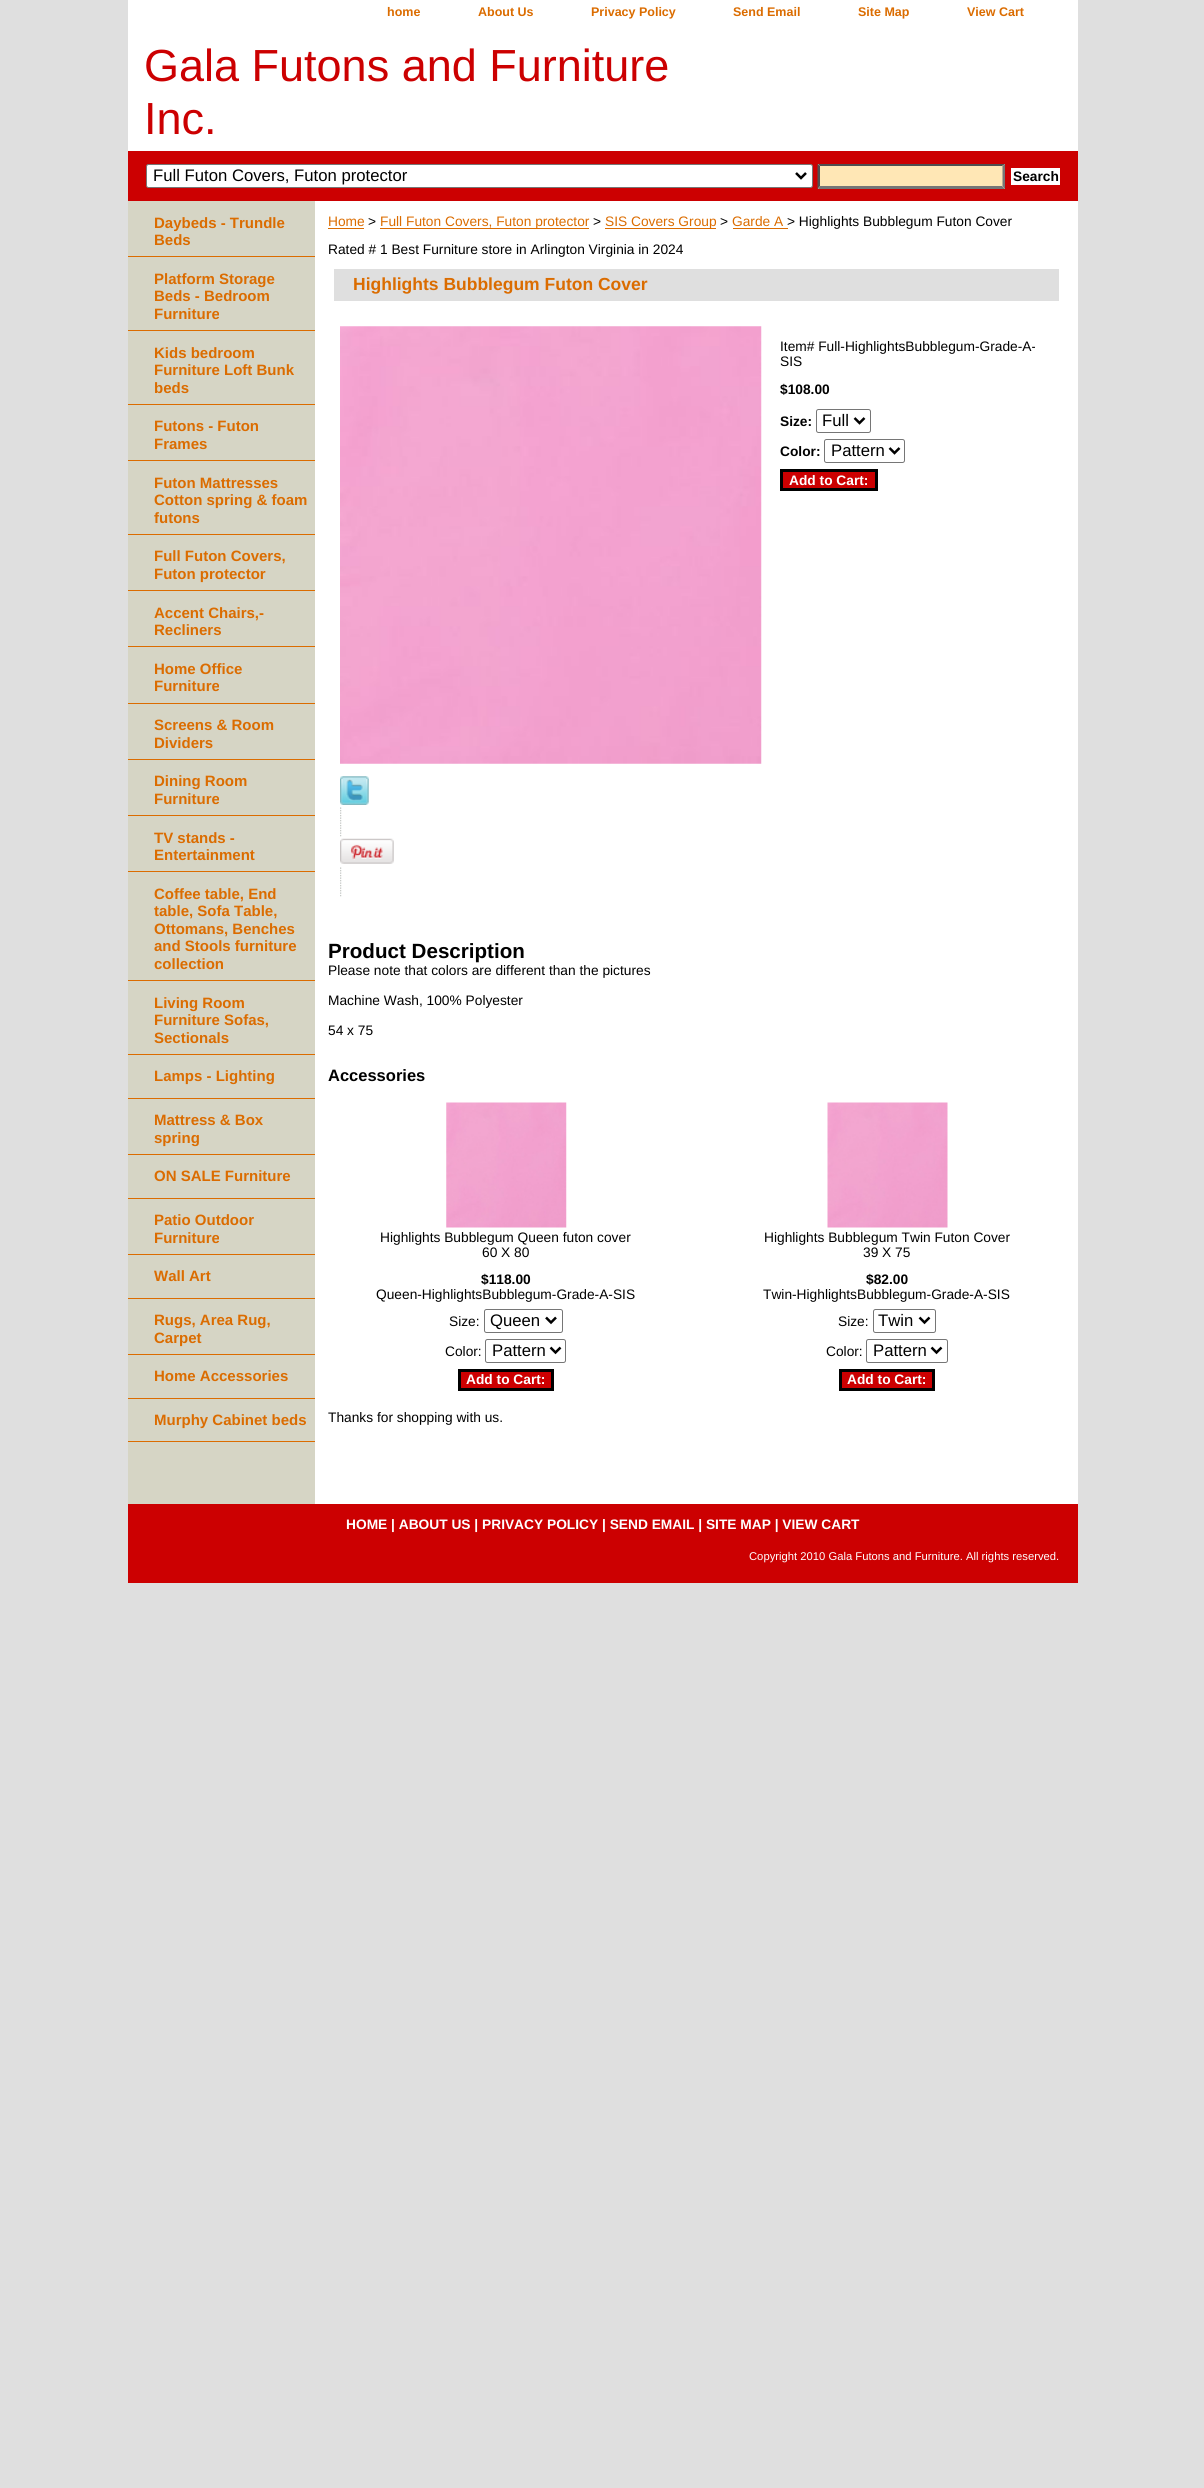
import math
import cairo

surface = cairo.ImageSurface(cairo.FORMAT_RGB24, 1204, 2488)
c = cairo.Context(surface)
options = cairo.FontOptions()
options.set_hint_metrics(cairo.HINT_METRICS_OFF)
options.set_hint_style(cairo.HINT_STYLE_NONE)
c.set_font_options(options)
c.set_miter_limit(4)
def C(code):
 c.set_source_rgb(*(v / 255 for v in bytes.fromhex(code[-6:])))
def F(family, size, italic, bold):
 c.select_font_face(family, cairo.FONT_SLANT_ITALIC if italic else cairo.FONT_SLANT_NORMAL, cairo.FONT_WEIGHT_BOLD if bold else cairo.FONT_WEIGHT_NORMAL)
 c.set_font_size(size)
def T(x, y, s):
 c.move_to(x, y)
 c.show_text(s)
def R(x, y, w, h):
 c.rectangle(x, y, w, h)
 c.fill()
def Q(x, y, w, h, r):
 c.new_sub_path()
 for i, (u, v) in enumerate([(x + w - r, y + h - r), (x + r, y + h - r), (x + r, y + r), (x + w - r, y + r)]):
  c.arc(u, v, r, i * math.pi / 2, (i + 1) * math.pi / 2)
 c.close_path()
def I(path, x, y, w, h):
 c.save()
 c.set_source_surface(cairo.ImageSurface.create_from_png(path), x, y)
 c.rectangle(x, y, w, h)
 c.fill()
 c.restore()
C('dfdfdf')
c.paint()
C('ffffff')
R(128,0,950,151)
F('Liberation Sans',12.5,0,1)
C('db6c00')
T(387,16,'home')
T(478,16,'About Us')
T(591,16,'Privacy Policy')
T(733,16,'Send Email')
T(858,16,'Site Map')
T(967,16,'View Cart')
F('Liberation Sans',45,0,0)
C('cc0001')
T(144,81,'Gala Futons and Furniture')
T(144,134,'Inc.')
R(128,151,950,50)
C('ffffff')
Q(146.5,164.5,666,23,2)
c.fill_preserve()
C('767676')
c.set_line_width(1)
c.stroke()
c.new_path()
c.move_to(796,173)
c.line_to(801,178)
c.line_to(806,173)
C('000000')
c.set_line_width(2.5)
c.stroke()
F('Liberation Sans',16.7,0,0)
T(153,181,'Full Futon Covers, Futon protector')
C('ffe7b5')
R(818,164,187,25)
C('4f4f4f')
c.new_path()
c.move_to(818,164)
c.line_to(1005,164)
c.line_to(1002,166)
c.line_to(820,166)
c.close_path()
c.fill()
C('767676')
c.new_path()
c.move_to(1005,164)
c.line_to(1005,189)
c.line_to(1002.5,186)
c.line_to(1002.5,166)
c.close_path()
c.fill()
c.new_path()
c.move_to(1005,189)
c.line_to(818,189)
c.line_to(820,186)
c.line_to(1002,186)
c.close_path()
c.fill()
C('4f4f4f')
c.new_path()
c.move_to(817.5,189)
c.line_to(817.5,164)
c.line_to(820,166)
c.line_to(820,186)
c.close_path()
c.fill()
C('ffffff')
R(1011,168,49,17)
F('Liberation Sans',13.75,0,1)
C('000000')
T(1013,181,'Search')
C('ffffff')
R(315,201,763,1303)
C('d6d5c5')
R(128,201,187,1303)
C('db6c00')
R(128,256,187,1)
F('Liberation Sans',15,0,1)
T(154,228,'Daybeds - Trundle')
T(154,245,'Beds')
R(128,330,187,1)
T(154,284,'Platform Storage')
T(154,301,'Beds - Bedroom')
T(154,319,'Furniture')
R(128,404,187,1)
T(154,358,'Kids bedroom')
T(154,375,'Furniture Loft Bunk')
T(154,393,'beds')
R(128,460,187,1)
T(154,431,'Futons - Futon')
T(154,449,'Frames')
R(128,534,187,1)
T(154,488,'Futon Mattresses')
T(154,505,'Cotton spring & foam')
T(154,523,'futons')
R(128,590,187,1)
T(154,561,'Full Futon Covers,')
T(154,579,'Futon protector')
R(128,646,187,1)
T(154,618,'Accent Chairs,-')
T(154,635,'Recliners')
R(128,703,187,1)
T(154,674,'Home Office')
T(154,691,'Furniture')
R(128,759,187,1)
T(154,730,'Screens & Room')
T(154,748,'Dividers')
R(128,815,187,1)
T(154,786,'Dining Room')
T(154,804,'Furniture')
R(128,871,187,1)
T(154,843,'TV stands -')
T(154,860,'Entertainment')
R(128,980,187,1)
T(154,899,'Coffee table, End')
T(154,916,'table, Sofa Table,')
T(154,934,'Ottomans, Benches')
T(154,951,'and Stools furniture')
T(154,969,'collection')
R(128,1054,187,1)
T(154,1008,'Living Room')
T(154,1025,'Furniture Sofas,')
T(154,1043,'Sectionals')
R(128,1098,187,1)
T(154,1081,'Lamps - Lighting')
R(128,1154,187,1)
T(154,1125,'Mattress & Box')
T(154,1143,'spring')
R(128,1198,187,1)
T(154,1181,'ON SALE Furniture')
R(128,1254,187,1)
T(154,1225,'Patio Outdoor')
T(154,1243,'Furniture')
R(128,1298,187,1)
T(154,1281,'Wall Art')
R(128,1354,187,1)
T(154,1325,'Rugs, Area Rug,')
T(154,1343,'Carpet')
R(128,1398,187,1)
T(154,1381,'Home Accessories')
R(128,1441,187,1)
T(154,1425,'Murphy Cabinet beds')
F('Liberation Sans',13.75,0,0)
T(328,226,'Home')
R(328,228,36,1)
C('000000')
T(368,226,'>')
C('db6c00')
R(380,228,209,1)
T(380,226,'Full Futon Covers, Futon protector')
C('000000')
T(593,226,'>')
C('db6c00')
R(605,228,111,1)
T(605,226,'SIS Covers Group')
C('000000')
T(720,226,'>')
C('db6c00')
T(732,226,'Garde A')
R(733,228,55,1)
C('000000')
T(787,226,'> Highlights Bubblegum Futon Cover')
T(328,254,'Rated # 1 Best Furniture store in Arlington Virginia in 2024')
C('dfdfdf')
R(334,269,725,32)
F('Liberation Sans',17.5,0,1)
C('db6c00')
T(353,290,'Highlights Bubblegum Futon Cover')
I('1.png',340,326,422,438)
F('Liberation Sans',13.75,0,0)
C('000000')
T(780,351,'Item# Full-HighlightsBubblegum-Grade-A-')
T(780,366,'SIS')
F('Liberation Sans',13.75,0,1)
T(780,394,'$108.00')
T(780,426,'Size:')
Q(816.5,409.5,54,23,2)
C('767676')
c.set_line_width(1)
c.stroke()
c.new_path()
c.move_to(854.5,418)
c.line_to(859.5,423)
c.line_to(864.5,418)
C('000000')
c.set_line_width(2.5)
c.stroke()
F('Liberation Sans',16.7,0,0)
T(822,426,'Full')
F('Liberation Sans',13.75,0,1)
T(780,456,'Color:')
Q(824.5,439.5,80,23,2)
C('767676')
c.set_line_width(1)
c.stroke()
c.new_path()
c.move_to(889.5,448)
c.line_to(894.5,453)
c.line_to(899.5,448)
C('000000')
c.set_line_width(2.5)
c.stroke()
F('Liberation Sans',16.7,0,0)
T(831,456,'Pattern')
C('cc0001')
c.rectangle(781.5,470.5,95,19)
c.fill_preserve()
C('000000')
c.set_line_width(3)
c.stroke()
F('Liberation Sans',13.75,0,1)
C('ffffff')
T(789,485,'Add to Cart:')
I('2.png',340,776,29,29)
I('3.png',340,807,2,30)
I('4.png',340,838,54,26)
I('3.png',340,867,2,30)
F('Liberation Sans',20.6,0,1)
C('000000')
T(328,958,'Product Description')
F('Liberation Sans',13.75,0,0)
T(328,975,'Please note that colors are different than the pictures')
T(328,1005,'Machine Wash, 100% Polyester')
T(328,1035,'54 x 75')
F('Liberation Sans',16.5,0,1)
T(328,1081,'Accessories')
I('5.png',446,1102,121,126)
F('Liberation Sans',13.75,0,0)
T(380,1242,'Highlights Bubblegum Queen futon cover')
T(482,1257,'60 X 80')
F('Liberation Sans',13.75,0,1)
T(481,1284,'$118.00')
F('Liberation Sans',13.75,0,0)
T(376,1299,'Queen-HighlightsBubblegum-Grade-A-SIS')
T(449,1326,'Size:')
Q(484.5,1309.5,78,23,2)
C('767676')
c.set_line_width(1)
c.stroke()
c.new_path()
c.move_to(546,1317.5)
c.line_to(551,1322.5)
c.line_to(556,1317.5)
C('000000')
c.set_line_width(2.5)
c.stroke()
F('Liberation Sans',16.7,0,0)
T(490,1326,'Queen')
F('Liberation Sans',13.75,0,0)
T(445,1356,'Color:')
Q(485.5,1339.5,80,23,2)
C('767676')
c.set_line_width(1)
c.stroke()
c.new_path()
c.move_to(550.5,1347.5)
c.line_to(555.5,1352.5)
c.line_to(560.5,1347.5)
C('000000')
c.set_line_width(2.5)
c.stroke()
F('Liberation Sans',16.7,0,0)
T(492,1356,'Pattern')
C('cc0001')
c.rectangle(459.5,1370.5,93,19)
c.fill_preserve()
C('000000')
c.set_line_width(3)
c.stroke()
F('Liberation Sans',13.75,0,1)
C('ffffff')
T(466,1384,'Add to Cart:')
I('6.png',827,1102,121,126)
F('Liberation Sans',13.75,0,0)
C('000000')
T(764,1242,'Highlights Bubblegum Twin Futon Cover')
T(863,1257,'39 X 75')
F('Liberation Sans',13.75,0,1)
T(866,1284,'$82.00')
F('Liberation Sans',13.75,0,0)
T(763,1299,'Twin-HighlightsBubblegum-Grade-A-SIS')
T(838,1326,'Size:')
Q(873.5,1309.5,62,23,2)
C('767676')
c.set_line_width(1)
c.stroke()
c.new_path()
c.move_to(919.5,1317.5)
c.line_to(924.5,1322.5)
c.line_to(929.5,1317.5)
C('000000')
c.set_line_width(2.5)
c.stroke()
F('Liberation Sans',16.7,0,0)
T(878,1326,'Twin')
F('Liberation Sans',13.75,0,0)
T(826,1356,'Color:')
Q(866.5,1339.5,81,23,2)
C('767676')
c.set_line_width(1)
c.stroke()
c.new_path()
c.move_to(931.5,1347.5)
c.line_to(936.5,1352.5)
c.line_to(941.5,1347.5)
C('000000')
c.set_line_width(2.5)
c.stroke()
F('Liberation Sans',16.7,0,0)
T(873,1356,'Pattern')
C('cc0001')
c.rectangle(840.5,1370.5,93,19)
c.fill_preserve()
C('000000')
c.set_line_width(3)
c.stroke()
F('Liberation Sans',13.75,0,1)
C('ffffff')
T(847,1384,'Add to Cart:')
F('Liberation Sans',13.75,0,0)
C('000000')
T(328,1422,'Thanks for shopping with us.')
C('cc0001')
R(128,1504,950,79)
F('Liberation Sans',13.75,0,1)
C('ffffff')
T(346,1529,'HOME | ABOUT US | PRIVACY POLICY | SEND EMAIL | SITE MAP | VIEW CART')
F('Liberation Sans',11.25,0,0)
T(749,1560,'Copyright 2010 Gala Futons and Furniture. All rights reserved.')
surface.write_to_png('o.png')
